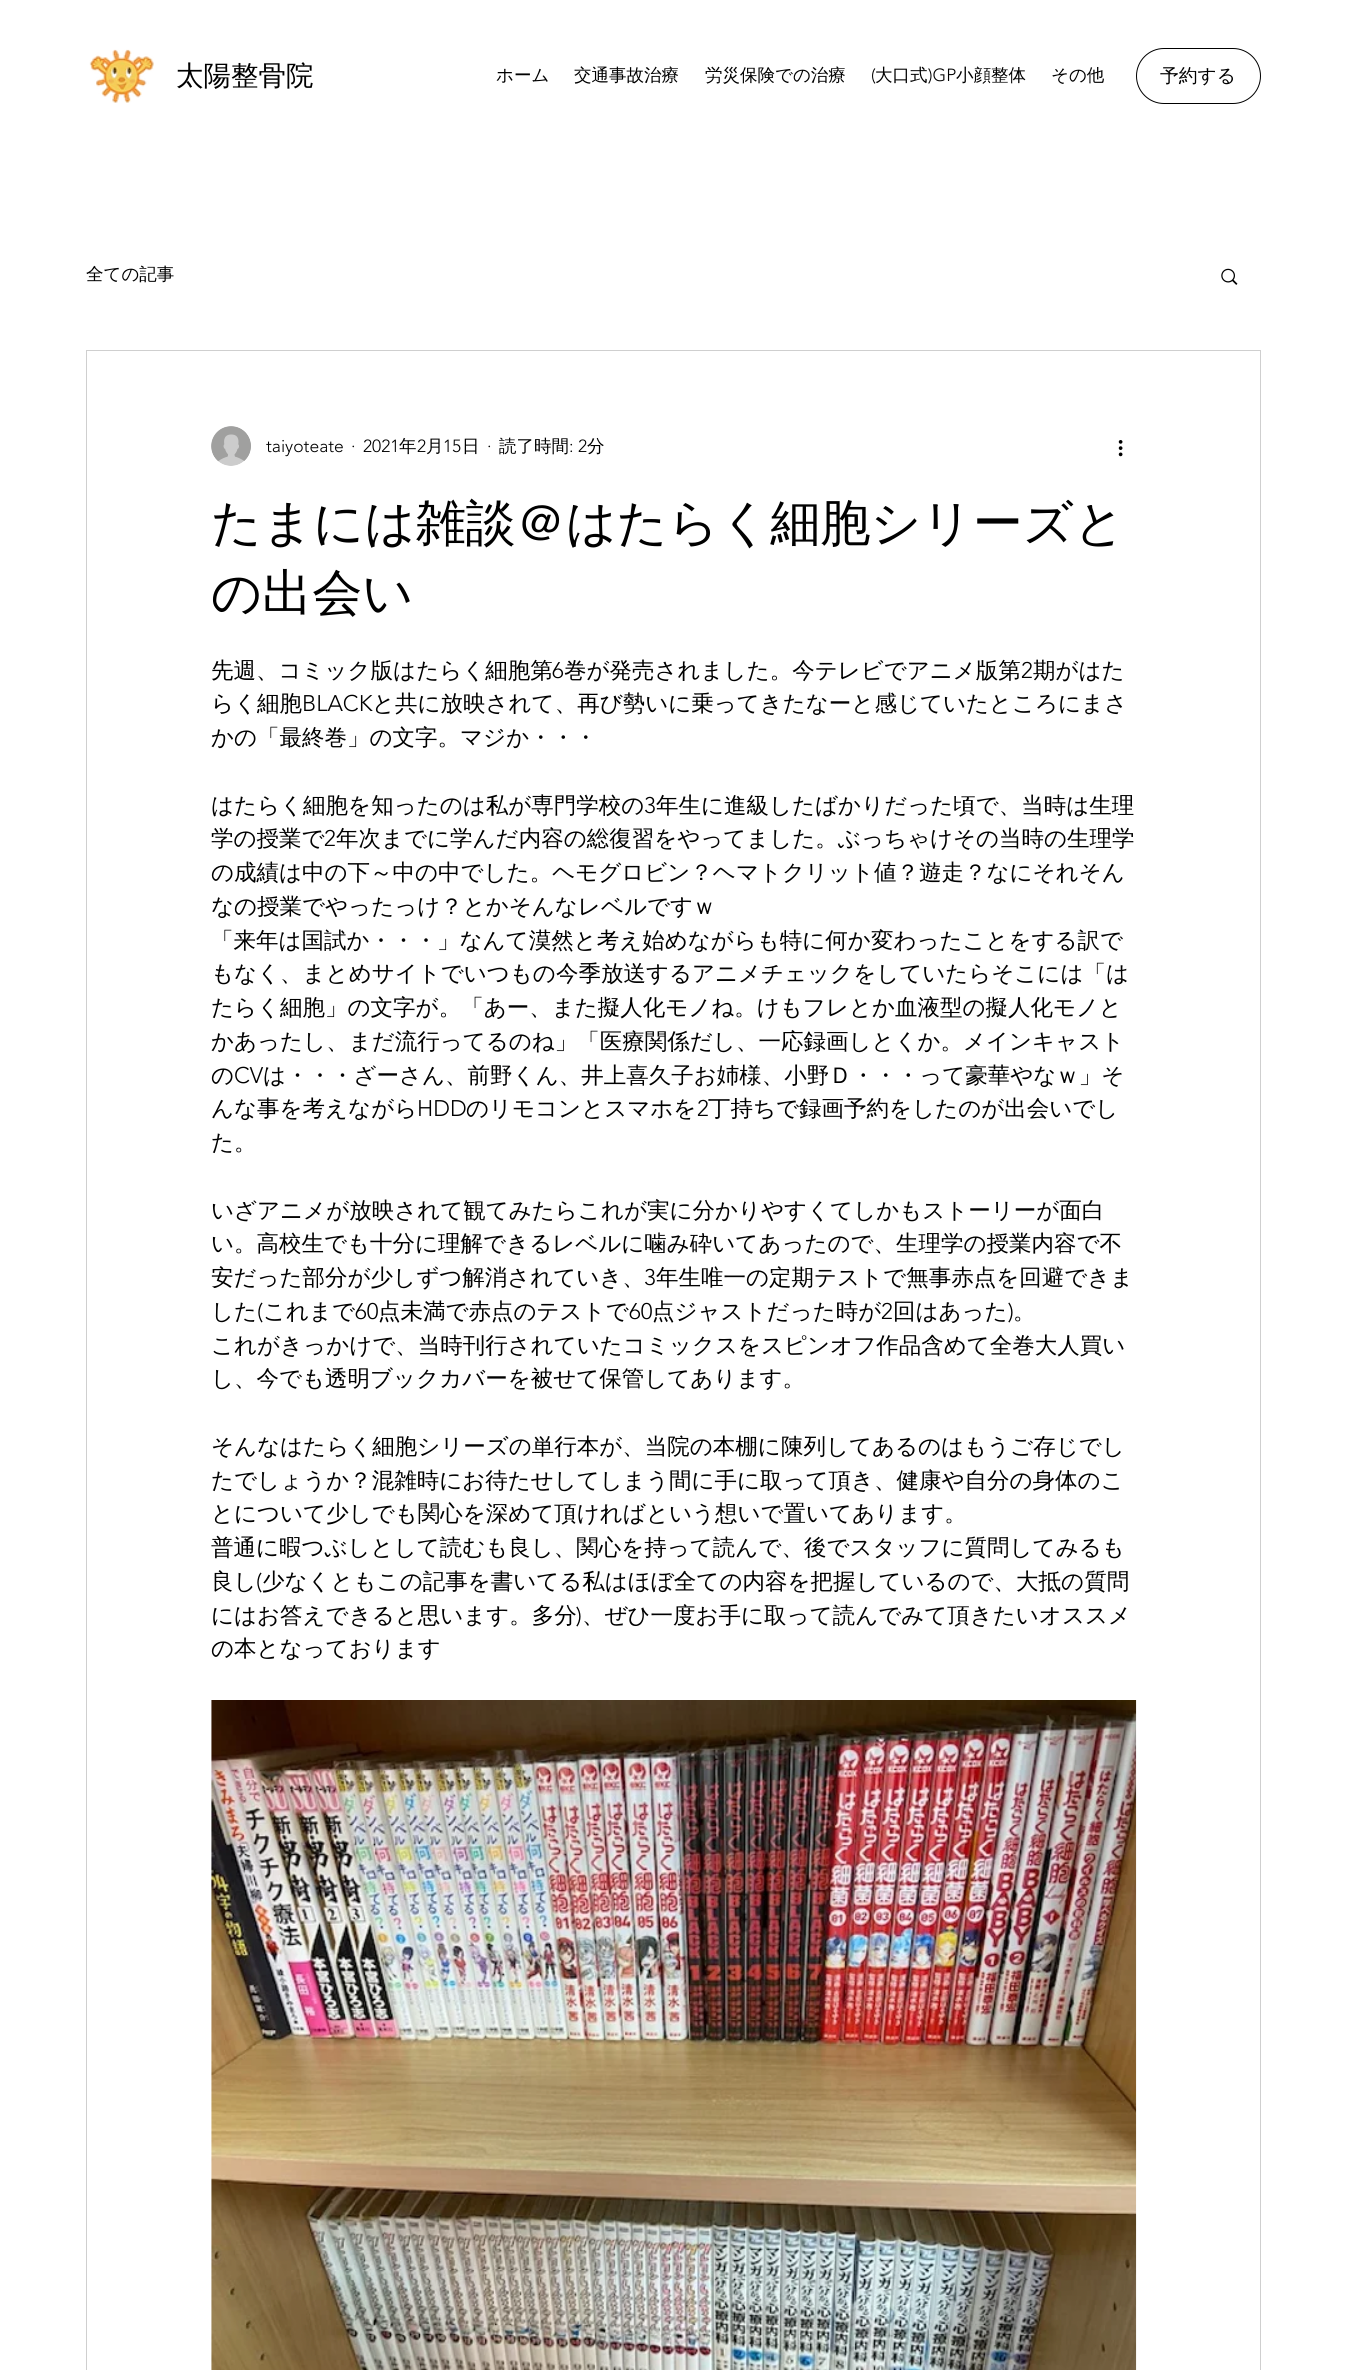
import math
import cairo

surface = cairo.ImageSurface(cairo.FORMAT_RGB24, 1346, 2370)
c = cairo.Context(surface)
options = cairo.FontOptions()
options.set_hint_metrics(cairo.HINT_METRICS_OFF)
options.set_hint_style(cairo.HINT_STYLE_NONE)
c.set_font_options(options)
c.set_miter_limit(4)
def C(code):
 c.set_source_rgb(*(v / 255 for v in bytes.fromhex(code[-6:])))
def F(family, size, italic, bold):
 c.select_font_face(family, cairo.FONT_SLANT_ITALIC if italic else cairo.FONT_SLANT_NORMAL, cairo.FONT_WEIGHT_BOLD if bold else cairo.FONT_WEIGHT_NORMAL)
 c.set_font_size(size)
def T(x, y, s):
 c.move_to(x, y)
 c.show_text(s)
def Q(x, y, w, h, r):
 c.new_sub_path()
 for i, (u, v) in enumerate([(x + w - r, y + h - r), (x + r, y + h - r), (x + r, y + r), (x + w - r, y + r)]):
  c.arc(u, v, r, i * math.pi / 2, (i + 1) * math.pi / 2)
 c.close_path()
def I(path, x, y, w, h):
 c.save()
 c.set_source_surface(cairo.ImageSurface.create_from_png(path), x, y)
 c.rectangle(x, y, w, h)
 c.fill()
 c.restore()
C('ffffff')
c.paint()
I('1.png',89,49,65,54)
F('WenQuanYi Zen Hei Medium',27.5,0,0)
C('000000')
T(176,85,'太陽整骨院')
F('WenQuanYi Zen Hei Medium',17.5,0,0)
T(496,81,'ホーム')
T(574,81,'交通事故治療')
T(705,81,'労災保険での治療')
F('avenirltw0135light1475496 Light',17.5,0,0)
T(871,81,'(')
F('WenQuanYi Zen Hei Medium',17.5,0,0)
T(875,81,'大口式')
F('avenirltw0135light1475496 Light',17.5,0,0)
T(928,81,')GP')
F('WenQuanYi Zen Hei Medium',17.5,0,0)
T(956,81,'小顔整体')
T(1051,81,'その他')
Q(1136.5,48.5,124,55,27.5)
c.set_line_width(1)
c.stroke()
F('WenQuanYi Zen Hei Medium',18.75,0,0)
T(1160,82,'予約する')
F('WenQuanYi Zen Hei Medium',17.5,0,0)
T(86,280,'全ての記事')
I('2.png',1221,268,17,17)
c.rectangle(86.5,350.5,1174,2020)
C('cfcfcf')
c.stroke()
I('3.png',211,426,40,40)
F('avenirltw0135light1475496 Light',17.5,0,0)
C('000000')
T(266,452,'taiyoteate')
T(351,452,'·')
T(363,452,'2021')
F('WenQuanYi Zen Hei Medium',17.5,0,0)
T(399,452,'年')
F('avenirltw0135light1475496 Light',17.5,0,0)
T(417,452,'2')
F('WenQuanYi Zen Hei Medium',17.5,0,0)
T(426,452,'月')
F('avenirltw0135light1475496 Light',17.5,0,0)
T(443,452,'15')
F('WenQuanYi Zen Hei Medium',17.5,0,0)
T(462,452,'日')
F('avenirltw0135light1475496 Light',17.5,0,0)
T(487,452,'·')
F('WenQuanYi Zen Hei Medium',17.5,0,0)
T(499,452,'読了時間')
F('avenirltw0135light1475496 Light',17.5,0,0)
T(569,452,': 2')
F('WenQuanYi Zen Hei Medium',17.5,0,0)
T(587,452,'分')
I('4.png',1118,440,5,17)
F('WenQuanYi Zen Hei Medium',50,0,0)
T(211,540,'たまには雑談＠はたらく細胞シリーズと')
T(211,610,'の出会い')
F('WenQuanYi Zen Hei Medium',22.5,0,0)
T(211,678,'先週、コミック版はたらく細胞第')
F('avenirltw0135light1475496 Light',22.5,0,0)
T(552,678,'6')
F('WenQuanYi Zen Hei Medium',22.5,0,0)
T(564,678,'巻が発売されました。今テレビでアニメ版第')
F('avenirltw0135light1475496 Light',22.5,0,0)
T(1021,678,'2')
F('WenQuanYi Zen Hei Medium',22.5,0,0)
T(1033,678,'期がはた')
T(211,711,'らく細胞')
F('avenirltw0135light1475496 Light',22.5,0,0)
T(302,711,'BLACK')
F('WenQuanYi Zen Hei Medium',22.5,0,0)
T(372,711,'と共に放映されて、再び勢いに乗ってきたなーと感じていたところにまさ')
T(211,745,'かの「最終巻」の文字。マジか・・・')
T(211,813,'はたらく細胞を知ったのは私が専門学校の')
F('avenirltw0135light1475496 Light',22.5,0,0)
T(644,813,'3')
F('WenQuanYi Zen Hei Medium',22.5,0,0)
T(656,813,'年生に進級したばかりだった頃で、当時は生理')
T(211,846,'学の授業で')
F('avenirltw0135light1475496 Light',22.5,0,0)
T(324,846,'2')
F('WenQuanYi Zen Hei Medium',22.5,0,0)
T(336,846,'年次までに学んだ内容の総復習をやってました。ぶっちゃけその当時の生理学')
T(211,880,'の成績は中の下～中の中でした。ヘモグロビン？ヘマトクリット値？遊走？なにそれそん')
T(211,914,'なの授業でやったっけ？とかそんなレベルですｗ')
T(211,948,'「来年は国試か・・・」なんて漠然と考え始めながらも特に何か変わったことをする訳で')
T(211,981,'もなく、まとめサイトでいつもの今季放送するアニメチェックをしていたらそこには「は')
T(211,1015,'たらく細胞」の文字が。「あー、また擬人化モノね。けもフレとか血液型の擬人化モノと')
T(211,1049,'かあったし、まだ流行ってるのね」「医療関係だし、一応録画しとくか。メインキャスト')
T(211,1083,'の')
F('avenirltw0135light1475496 Light',22.5,0,0)
T(234,1083,'CV')
F('WenQuanYi Zen Hei Medium',22.5,0,0)
T(263,1083,'は・・・ざーさん、前野くん、井上喜久子お姉様、小野Ｄ・・・って豪華やなｗ」そ')
T(211,1116,'んな事を考えながら')
F('avenirltw0135light1475496 Light',22.5,0,0)
T(417,1116,'HDD')
F('WenQuanYi Zen Hei Medium',22.5,0,0)
T(466,1116,'のリモコンとスマホを')
F('avenirltw0135light1475496 Light',22.5,0,0)
T(697,1116,'2')
F('WenQuanYi Zen Hei Medium',22.5,0,0)
T(708,1116,'丁持ちで録画予約をしたのが出会いでし')
T(211,1150,'た。')
T(211,1218,'いざアニメが放映されて観てみたらこれが実に分かりやすくてしかもストーリーが面白')
T(211,1251,'い。高校生でも十分に理解できるレベルに噛み砕いてあったので、生理学の授業内容で不')
T(211,1285,'安だった部分が少しずつ解消されていき、')
F('avenirltw0135light1475496 Light',22.5,0,0)
T(644,1285,'3')
F('WenQuanYi Zen Hei Medium',22.5,0,0)
T(656,1285,'年生唯一の定期テストで無事赤点を回避できま')
T(211,1319,'した')
F('avenirltw0135light1475496 Light',22.5,0,0)
T(257,1319,'(')
F('WenQuanYi Zen Hei Medium',22.5,0,0)
T(263,1319,'これまで')
F('avenirltw0135light1475496 Light',22.5,0,0)
T(355,1319,'60')
F('WenQuanYi Zen Hei Medium',22.5,0,0)
T(378,1319,'点未満で赤点のテストで')
F('avenirltw0135light1475496 Light',22.5,0,0)
T(629,1319,'60')
F('WenQuanYi Zen Hei Medium',22.5,0,0)
T(652,1319,'点ジャストだった時が')
F('avenirltw0135light1475496 Light',22.5,0,0)
T(881,1319,'2')
F('WenQuanYi Zen Hei Medium',22.5,0,0)
T(893,1319,'回はあった')
F('avenirltw0135light1475496 Light',22.5,0,0)
T(1008,1319,')')
F('WenQuanYi Zen Hei Medium',22.5,0,0)
T(1013,1319,'。')
T(211,1353,'これがきっかけで、当時刊行されていたコミックスをスピンオフ作品含めて全巻大人買い')
T(211,1386,'し、今でも透明ブックカバーを被せて保管してあります。')
T(211,1454,'そんなはたらく細胞シリーズの単行本が、当院の本棚に陳列してあるのはもうご存じでし')
T(211,1488,'たでしょうか？混雑時にお待たせしてしまう間に手に取って頂き、健康や自分の身体のこ')
T(211,1521,'とについて少しでも関心を深めて頂ければという想いで置いてあります。')
T(211,1555,'普通に暇つぶしとして読むも良し、関心を持って読んで、後でスタッフに質問してみるも')
T(211,1589,'良し')
F('avenirltw0135light1475496 Light',22.5,0,0)
T(256,1589,'(')
F('WenQuanYi Zen Hei Medium',22.5,0,0)
T(262,1589,'少なくともこの記事を書いてる私はほぼ全ての内容を把握しているので、大抵の質問')
T(211,1623,'にはお答えできると思います。多分')
F('avenirltw0135light1475496 Light',22.5,0,0)
T(576,1623,')')
F('WenQuanYi Zen Hei Medium',22.5,0,0)
T(582,1623,'、ぜひ一度お手に取って読んでみて頂きたいオススメ')
T(211,1656,'の本となっております')
I('5.png',211,1700,926,670)
surface.write_to_png('o.png')
